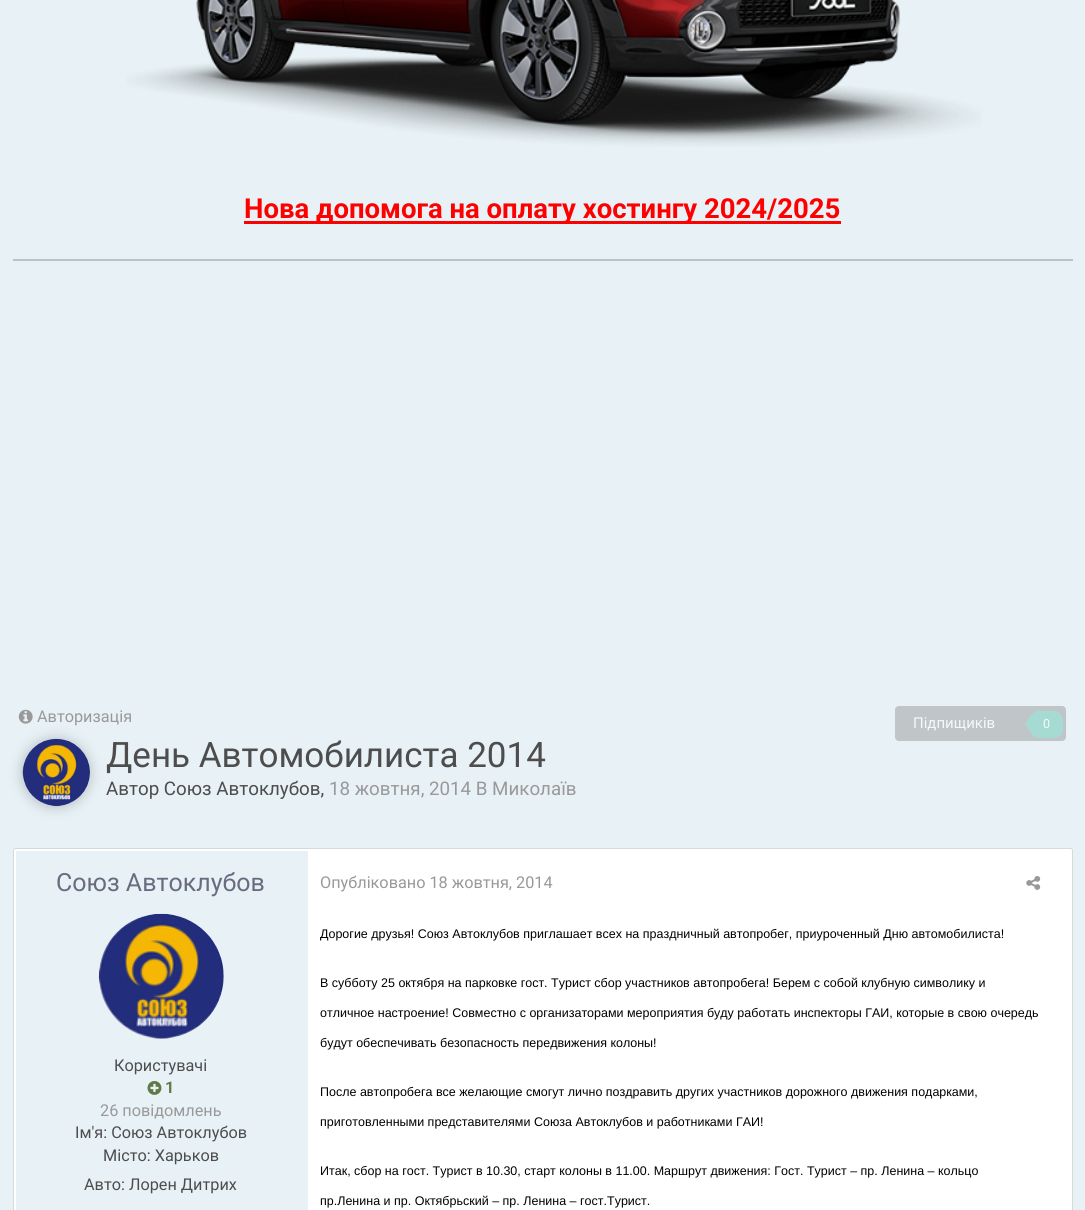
import math
import cairo

surface = cairo.ImageSurface(cairo.FORMAT_RGB24, 1085, 1210)
c = cairo.Context(surface)
options = cairo.FontOptions()
options.set_hint_metrics(cairo.HINT_METRICS_OFF)
options.set_hint_style(cairo.HINT_STYLE_NONE)
c.set_font_options(options)
c.set_miter_limit(4)
def C(code):
 c.set_source_rgb(*(v / 255 for v in bytes.fromhex(code[-6:])))
def F(family, size, italic, bold):
 c.select_font_face(family, cairo.FONT_SLANT_ITALIC if italic else cairo.FONT_SLANT_NORMAL, cairo.FONT_WEIGHT_BOLD if bold else cairo.FONT_WEIGHT_NORMAL)
 c.set_font_size(size)
def T(x, y, s):
 c.move_to(x, y)
 c.show_text(s)
def R(x, y, w, h):
 c.rectangle(x, y, w, h)
 c.fill()
def Q(x, y, w, h, r):
 c.new_sub_path()
 for i, (u, v) in enumerate([(x + w - r, y + h - r), (x + r, y + h - r), (x + r, y + r), (x + w - r, y + r)]):
  c.arc(u, v, r, i * math.pi / 2, (i + 1) * math.pi / 2)
 c.close_path()
def S(x, y, w, h, r, blur, alpha):
 c.push_group_with_content(cairo.CONTENT_ALPHA)
 c.set_operator(cairo.OPERATOR_SOURCE)
 for i in range(15, -16, -2):
  e = blur * i / 6
  if min(w, h) + 2 * e > 0:
   c.set_source_rgba(0, 0, 0, alpha * math.erfc((i - 1) / 8.5) / 2)
   Q(x - e, y - e, w + 2 * e, h + 2 * e, max(0, min(r + e + blur * .6, min(w, h) / 2 + e)))
   c.fill()
 c.mask(c.pop_group())
def I(path, x, y, w, h):
 c.save()
 c.set_source_surface(cairo.ImageSurface.create_from_png(path), x, y)
 c.rectangle(x, y, w, h)
 c.fill()
 c.restore()
C('e8f2f6')
c.paint()
C('bac2c5')
c.new_path()
c.move_to(13,259)
c.line_to(13,261)
c.line_to(1073,261)
c.line_to(1073,-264)
c.line_to(1072,-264)
c.line_to(1072,259)
c.close_path()
c.fill()
C('e8f2f6')
R(1072,0,1,259)
I('1.png',126,0,856,147)
C('ff0000')
R(244,221,597,3)
F('Roboto',27.5,0,1)
T(244,218,'Нова допомога на оплату хостингу 2024/2025')
I('2.png',18,709,15,15)
F('Roboto',16.25,0,0)
C('999999')
T(37,722,'Авторизація')
C('c0c5c7')
Q(895,706,171,35,4)
c.fill()
F('Roboto',15,0,0)
C('f4f9fb')
T(913,728,'Підпищиків')
C('a6dbd4')
Q(1030,711,33,27,9)
c.fill()
c.new_path()
c.move_to(1031,715)
c.line_to(1031,732.5)
c.line_to(1025,724)
c.close_path()
c.fill()
F('Roboto',12.5,0,0)
C('f4f9fb')
T(1043,728,'0')
C('000000')
S(21,738,70,70,35,6,.2)
I('3.png',22,738,68,69)
F('Roboto',35,0,0)
C('4d4d4d')
T(106,767,'День Автомобилиста 2014')
F('Roboto',18.75,0,0)
T(106,795,'Автор Союз Автоклубов,')
C('999999')
T(329,795,'18 жовтня, 2014 В Миколаїв')
C('ffffff')
c.new_path()
c.move_to(15.5,848.5)
c.line_to(1070.5,848.5)
c.curve_to(1071.5,848.5,1072.5,849.5,1072.5,850.5)
c.line_to(1072.5,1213.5)
c.line_to(13.5,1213.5)
c.line_to(13.5,850.5)
c.curve_to(13.5,849.5,14.5,848.5,15.5,848.5)
c.close_path()
c.fill_preserve()
C('d9d9d9')
c.set_line_width(1)
c.stroke()
C('e8f2f6')
R(16,851,292,359)
F('Roboto',25,0,0)
C('6a6b80')
T(56,891,'Союз Автоклубов')
I('4.png',98,913,126,126)
F('Roboto',16.25,0,0)
C('4d4d4d')
T(114,1071,'Користувачі')
I('5.png',147,1081,15,14)
F('Roboto',16.25,0,1)
C('5f7a47')
T(165,1093,'1')
F('Roboto',16.25,0,0)
C('999999')
T(100,1116,'26 повідомлень')
C('4d4d4d')
T(75,1138,'Ім\'я: Союз Автоклубов')
T(103,1161,'Місто: Харьков')
T(84,1190,'Авто: Лорен Дитрих')
C('999999')
T(320,888,'Опубліковано 18 жовтня, 2014')
I('6.png',1026,876,15,14)
F('Liberation Sans',12.5,0,0)
C('000000')
T(320,938,'Дорогие друзья! Союз Автоклубов приглашает всех на праздничный автопробег, приуроченный Дню автомобилиста!')
T(320,987,'В субботу 25 октября на парковке гост. Турист сбор участников автопробега! Берем с собой клубную символику и')
T(320,1017,'отличное настроение! Совместно с организаторами мероприятия буду работать инспекторы ГАИ, которые в свою очередь')
T(320,1047,'будут обеспечивать безопасность передвижения колоны!')
T(320,1096,'После автопробега все желающие смогут лично поздравить других участников дорожного движения подарками,')
T(320,1126,'приготовленными представителями Союза Автоклубов и работниками ГАИ!')
T(320,1175,'Итак, сбор на гост. Турист в 10.30, старт колоны в 11.00. Маршрут движения: Гост. Турист – пр. Ленина – кольцо')
T(320,1205,'пр.Ленина и пр. Октябрьский – пр. Ленина – гост.Турист.')
surface.write_to_png('o.png')
